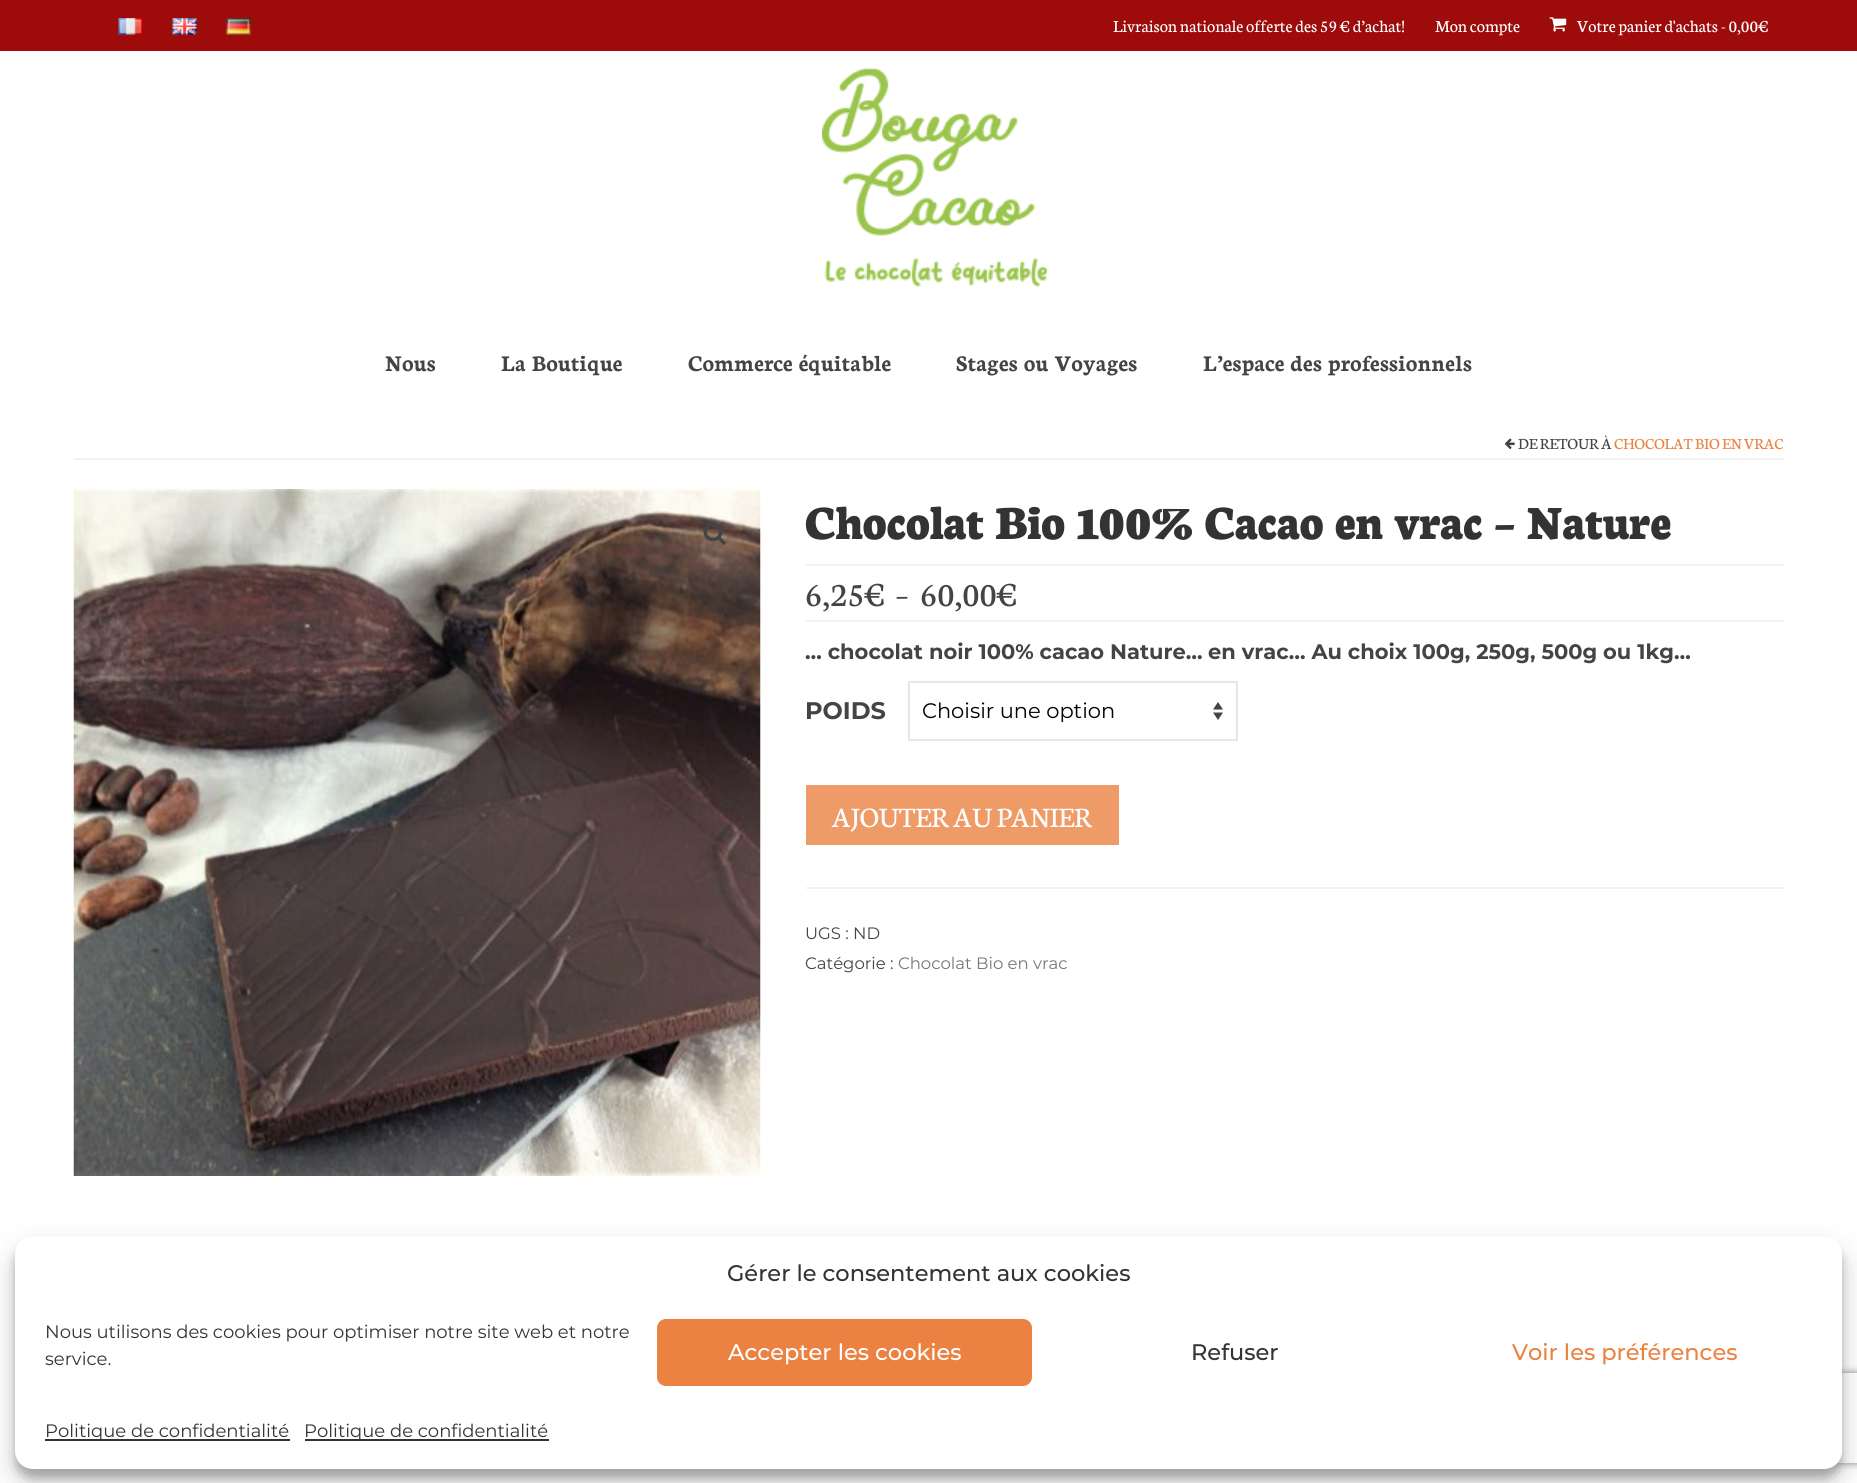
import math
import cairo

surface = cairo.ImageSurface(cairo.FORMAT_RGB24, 1857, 1483)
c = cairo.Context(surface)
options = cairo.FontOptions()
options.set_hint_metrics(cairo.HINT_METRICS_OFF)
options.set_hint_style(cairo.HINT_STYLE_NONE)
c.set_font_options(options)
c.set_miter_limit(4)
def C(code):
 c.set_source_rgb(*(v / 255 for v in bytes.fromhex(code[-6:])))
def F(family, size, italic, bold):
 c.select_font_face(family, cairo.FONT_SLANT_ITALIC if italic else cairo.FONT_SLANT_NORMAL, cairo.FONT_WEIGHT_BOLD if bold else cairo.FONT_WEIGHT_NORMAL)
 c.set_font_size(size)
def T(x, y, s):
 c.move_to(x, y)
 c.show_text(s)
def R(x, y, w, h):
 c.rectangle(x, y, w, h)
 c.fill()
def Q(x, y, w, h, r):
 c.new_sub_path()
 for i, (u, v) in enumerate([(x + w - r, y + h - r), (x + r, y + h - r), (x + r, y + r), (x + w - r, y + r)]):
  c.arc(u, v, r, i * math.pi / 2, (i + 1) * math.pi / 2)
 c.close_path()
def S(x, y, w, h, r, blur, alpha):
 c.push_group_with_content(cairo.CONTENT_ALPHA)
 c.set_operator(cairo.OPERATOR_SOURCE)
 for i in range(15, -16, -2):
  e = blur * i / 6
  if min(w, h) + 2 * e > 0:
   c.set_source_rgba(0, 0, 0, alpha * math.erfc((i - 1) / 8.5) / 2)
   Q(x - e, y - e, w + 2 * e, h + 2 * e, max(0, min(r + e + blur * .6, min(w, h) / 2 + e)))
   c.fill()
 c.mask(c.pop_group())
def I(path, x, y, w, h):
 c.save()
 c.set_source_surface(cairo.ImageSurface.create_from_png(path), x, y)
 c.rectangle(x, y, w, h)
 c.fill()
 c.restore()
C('ffffff')
c.paint()
C('9d0b0b')
R(0,0,1857,51)
I('1.png',118,18,25,17)
I('2.png',172,18,25,17)
I('3.png',226,18,25,17)
F('Neuton',18,0,0)
C('ffffff')
T(1113,32,'Livraison nationale offerte des 59 € d’achat!')
T(1435,32,'Mon compte')
I('4.png',1549,17,18,15)
T(1577,32,'Votre panier d\'achats - 0,00€')
I('5.png',822,67,225,220)
F('Neuton',24,0,1)
C('444444')
T(385,371,'Nous')
T(501,371,'La Boutique')
T(688,371,'Commerce équitable')
T(956,371,'Stages ou Voyages')
T(1203,371,'L’espace des professionnels')
C('f2f2f2')
R(74,458,1710,2)
I('6.png',1505,438,10,11)
F('Neuton',16.5,0,0)
C('444444')
T(1518,449,'DE RETOUR À')
C('eb8242')
T(1614,449,'CHOCOLAT BIO EN VRAC')
I('7.png',73,489,688,687)
I('8.png',703,522,23,23)
F('Neuton ExtraBold',51,0,0)
C('333333')
T(805,539,'Chocolat Bio 100% Cacao en vrac – Nature')
C('f2f2f2')
R(806,564,978,2)
R(806,620,978,2)
F('Neuton',36,0,0)
C('444444')
T(805,606,'6,25€')
T(895,606,'–')
T(920,606,'60,00€')
F('Montserrat',21,0,1)
T(805,659,'… chocolat noir 100% cacao Nature…')
T(1208,659,'en vrac… Au choix 100g, 250g, 500g ou 1kg…')
F('Montserrat',24,0,1)
T(805,719,'POIDS')
c.new_path()
c.move_to(1213,709.5)
c.line_to(1218,702)
c.line_to(1223,709.5)
c.close_path()
c.move_to(1223,712.5)
c.line_to(1218,720)
c.line_to(1213,712.5)
c.close_path()
c.fill()
c.rectangle(909,682,328,58)
C('e6e6e6')
c.stroke()
F('Montserrat',21,0,0)
C('000000')
T(922,718,'Choisir une option')
C('ef9b68')
R(806,785,313,60)
F('Neuton',30,0,0)
C('ffffff')
T(832,827,'AJOUTER AU PANIER')
C('f2f2f2')
R(806,887,978,2)
F('Montserrat',16.5,0,0)
C('444444')
T(805,939,'UGS : ND')
T(805,969,'Catégorie :')
C('777777')
T(898,969,'Chocolat Bio en vrac')
C('000000')
S(15,1245,1827,233,18,4.5,.23)
S(15,1251,1827,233,18,15,.19)
c.save()
c.set_fill_rule(cairo.FILL_RULE_EVEN_ODD)
c.new_path()
c.move_to(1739,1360)
c.line_to(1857,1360)
c.line_to(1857,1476)
c.line_to(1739,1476)
c.close_path()
c.move_to(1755,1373)
c.line_to(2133,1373)
c.curve_to(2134.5,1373,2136,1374.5,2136,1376)
c.line_to(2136,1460)
c.curve_to(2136,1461.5,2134.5,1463,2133,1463)
c.line_to(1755,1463)
c.curve_to(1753.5,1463,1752,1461.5,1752,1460)
c.line_to(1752,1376)
c.curve_to(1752,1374.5,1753.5,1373,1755,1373)
c.close_path()
c.clip()
C('808080')
S(1752,1373,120,90,3,4,1)
c.restore()
C('ffffff')
Q(15,1236,1827,233,18)
c.fill()
F('Montserrat Medium',22.5,0,0)
C('333333')
T(727,1281,'Gérer le consentement aux cookies')
F('Montserrat',18,0,0)
T(45,1338,'Nous utilisons des cookies pour optimiser notre site web et notre')
T(45,1365,'service.')
C('eb8242')
Q(658,1320,373,65,8)
c.fill_preserve()
c.stroke()
F('Montserrat Medium',22.5,0,0)
C('ffffff')
T(728,1360,'Accepter les cookies')
C('333333')
T(1191,1360,'Refuser')
C('eb8242')
T(1512,1360,'Voir les préférences')
C('333333')
R(45,1439,245,2)
F('Montserrat',18,0,0)
T(45,1437,'Politique de confidentialité')
R(305,1439,244,2)
T(304,1437,'Politique de confidentialité')
surface.write_to_png('o.png')
